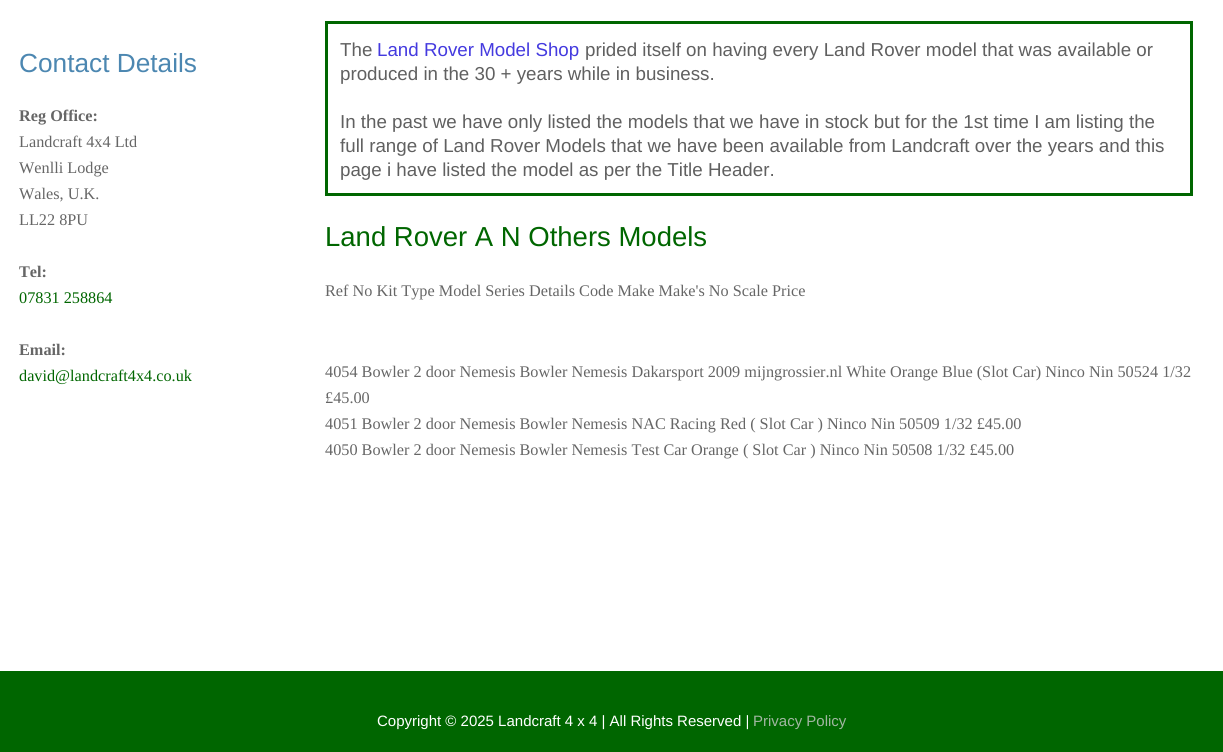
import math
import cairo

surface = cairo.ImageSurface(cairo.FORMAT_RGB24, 1223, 752)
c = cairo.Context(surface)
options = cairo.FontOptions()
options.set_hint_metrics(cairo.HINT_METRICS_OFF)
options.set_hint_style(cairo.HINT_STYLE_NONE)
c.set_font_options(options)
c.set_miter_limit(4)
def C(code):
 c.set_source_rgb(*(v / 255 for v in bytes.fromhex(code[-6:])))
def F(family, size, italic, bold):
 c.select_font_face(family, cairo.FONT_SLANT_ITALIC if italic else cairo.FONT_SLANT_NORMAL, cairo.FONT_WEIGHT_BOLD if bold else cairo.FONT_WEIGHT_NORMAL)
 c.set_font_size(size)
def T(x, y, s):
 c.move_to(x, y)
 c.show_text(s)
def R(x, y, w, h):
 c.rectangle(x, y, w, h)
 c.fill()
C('ffffff')
c.paint()
F('Liberation Sans',26.25,0,0)
C('4c87b1')
T(19,72,'Contact Details')
F('Liberation Serif',16.25,0,1)
C('666666')
T(19,121,'Reg Office:')
F('Liberation Serif',16.25,0,0)
T(19,147,'Landcraft 4x4 Ltd')
T(19,173,'Wenlli Lodge')
T(19,199,'Wales, U.K.')
T(19,225,'LL22 8PU')
F('Liberation Serif',16.25,0,1)
T(19,277,'Tel:')
F('Liberation Serif',16.25,0,0)
C('006600')
T(19,303,'07831 258864')
F('Liberation Serif',16.25,0,1)
C('666666')
T(19,355,'Email:')
F('Liberation Serif',16.25,0,0)
C('006600')
T(19,381,'david@landcraft4x4.co.uk')
c.rectangle(326.5,22.5,865,172)
c.set_line_width(3)
c.stroke()
F('Liberation Sans',18.75,0,0)
C('606060')
T(340,56,'The')
C('443adf')
T(377,56,'Land Rover Model Shop')
C('606060')
T(585,56,'prided itself on having every Land Rover model that was available or')
T(340,80,'produced in the 30 + years while in business.')
T(340,128,'In the past we have only listed the models that we have in stock but for the 1st time I am listing the')
T(340,152,'full range of Land Rover Models that we have been available from Landcraft over the years and this')
T(340,176,'page i have listed the model as per the Title Header.')
F('Liberation Sans',27.5,0,0)
C('006600')
T(325,246,'Land Rover A N Others Models')
F('Liberation Serif',16.25,0,0)
C('666666')
T(325,296,'Ref No Kit Type Model Series Details Code Make Make\'s No Scale Price')
T(325,377,'4054 Bowler 2 door Nemesis Bowler Nemesis Dakarsport 2009 mijngrossier.nl White Orange Blue (Slot Car) Ninco Nin 50524 1/32')
T(325,403,'£45.00')
T(325,429,'4051 Bowler 2 door Nemesis Bowler Nemesis NAC Racing Red ( Slot Car ) Ninco Nin 50509 1/32 £45.00')
T(325,455,'4050 Bowler 2 door Nemesis Bowler Nemesis Test Car Orange ( Slot Car ) Ninco Nin 50508 1/32 £45.00')
C('006600')
R(0,671,1223,81)
F('Liberation Sans',15,0,0)
C('ffffff')
T(377,726,'Copyright © 2025 Landcraft 4 x 4 | All Rights Reserved |')
C('a1b6a1')
T(753,726,'Privacy Policy')
surface.write_to_png('o.png')
